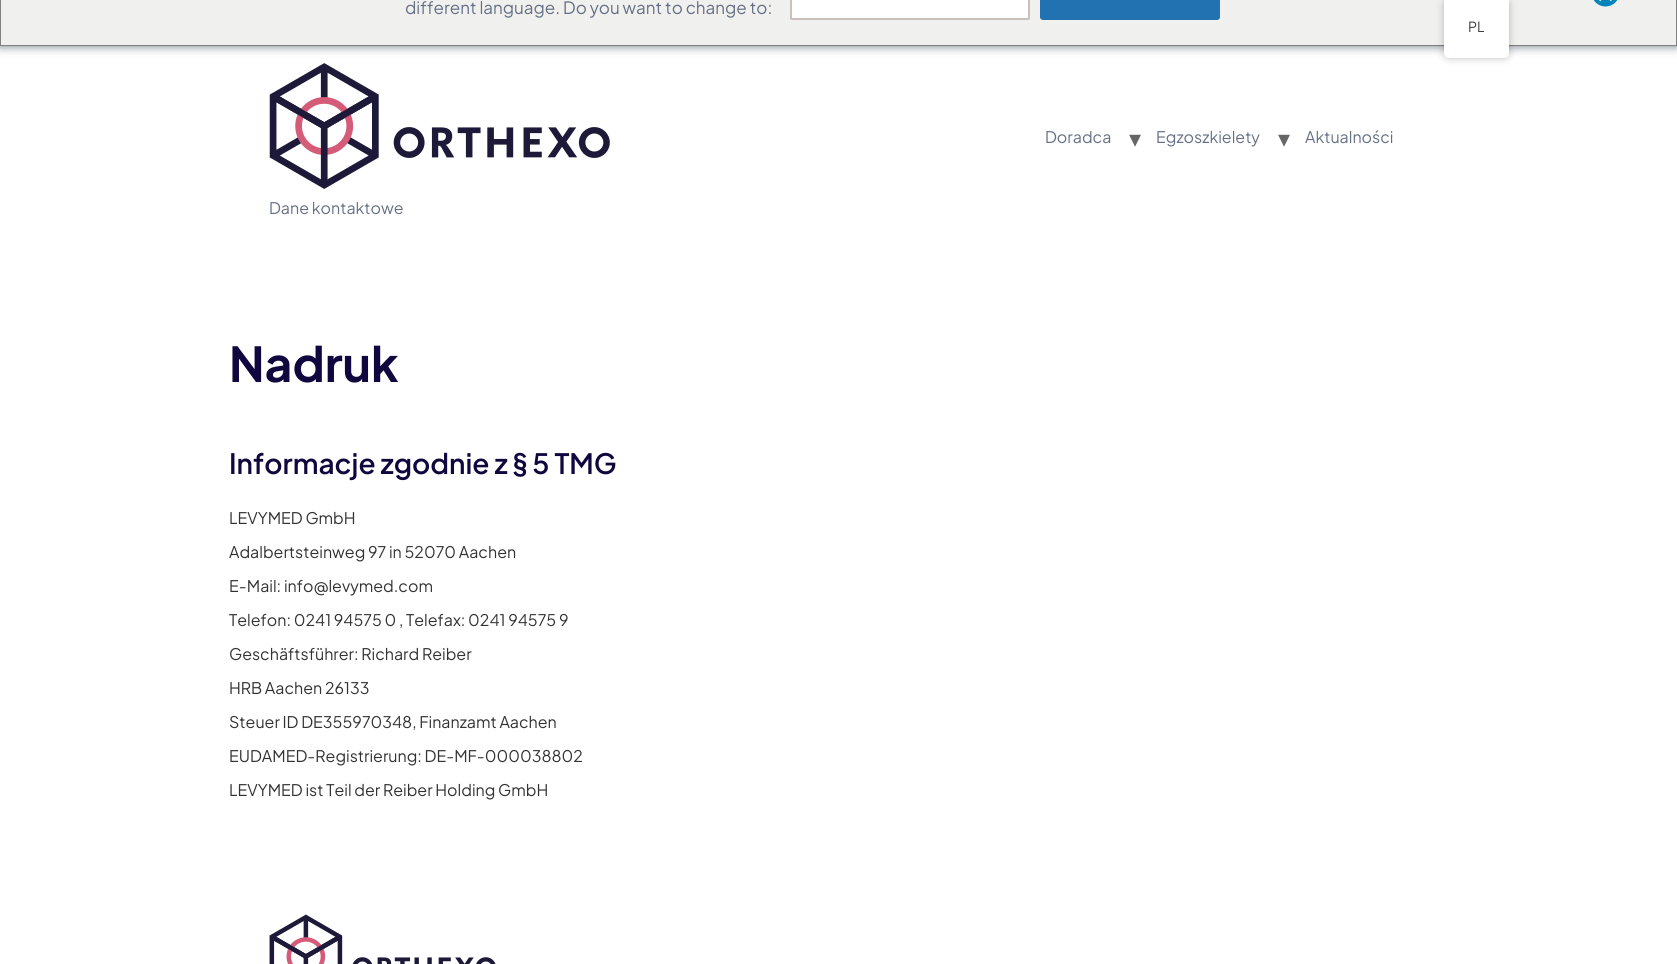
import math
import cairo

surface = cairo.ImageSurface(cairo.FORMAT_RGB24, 1677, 964)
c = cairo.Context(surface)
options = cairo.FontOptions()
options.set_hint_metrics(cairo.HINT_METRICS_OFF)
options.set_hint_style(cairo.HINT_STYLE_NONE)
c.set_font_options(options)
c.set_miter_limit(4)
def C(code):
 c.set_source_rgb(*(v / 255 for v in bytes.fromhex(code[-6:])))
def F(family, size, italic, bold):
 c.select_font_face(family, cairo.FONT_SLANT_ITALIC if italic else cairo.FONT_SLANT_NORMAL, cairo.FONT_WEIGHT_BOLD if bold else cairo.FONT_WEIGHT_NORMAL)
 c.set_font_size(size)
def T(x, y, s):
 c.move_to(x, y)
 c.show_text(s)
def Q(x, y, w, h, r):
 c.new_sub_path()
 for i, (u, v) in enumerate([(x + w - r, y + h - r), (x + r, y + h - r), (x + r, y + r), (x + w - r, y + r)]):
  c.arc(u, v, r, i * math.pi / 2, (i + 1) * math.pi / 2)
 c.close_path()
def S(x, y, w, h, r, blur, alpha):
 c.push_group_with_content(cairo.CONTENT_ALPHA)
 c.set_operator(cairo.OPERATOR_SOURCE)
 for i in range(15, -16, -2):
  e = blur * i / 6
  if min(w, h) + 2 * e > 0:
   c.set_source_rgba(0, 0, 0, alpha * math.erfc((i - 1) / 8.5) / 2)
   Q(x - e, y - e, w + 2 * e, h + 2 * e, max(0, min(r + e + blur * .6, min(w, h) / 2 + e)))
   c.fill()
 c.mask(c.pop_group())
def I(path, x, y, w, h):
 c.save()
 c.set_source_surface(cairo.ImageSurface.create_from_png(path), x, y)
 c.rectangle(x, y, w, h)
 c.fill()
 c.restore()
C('ffffff')
c.paint()
C('6c7781')
S(0,-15,1677,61,0,5,1)
C('f0f0ee')
c.rectangle(.5,-.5,1676,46)
c.fill_preserve()
C('808080')
c.set_line_width(1)
c.stroke()
F('Plus Jakarta Sans',17,0,0)
C('667085')
T(405,14,'different language. Do you want to change to:')
C('ffffff')
Q(791,-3,238,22,1)
c.fill_preserve()
C('c9c0bb')
c.set_line_width(2)
c.stroke()
C('2271b1')
Q(1040.5,-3.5,179,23,2.5)
c.fill_preserve()
c.set_line_width(1)
c.stroke()
I('1.png',1593,0,25,7)
C('000000')
S(1444,0,65,58,5,4,.25)
C('ffffff')
c.new_path()
c.move_to(1444,0)
c.line_to(1509,0)
c.line_to(1509,53)
c.curve_to(1509,56,1507,58,1504,58)
c.line_to(1449,58)
c.curve_to(1446,58,1444,56,1444,53)
c.close_path()
c.fill()
F('Plus Jakarta Sans',14,0,0)
C('404040')
T(1468,32,'PL')
F('Plus Jakarta Sans',16,0,0)
C('667085')
T(1045,143,'Doradca')
F('DejaVu Sans',24,0,0)
C('666666')
T(1129,147,'▾')
F('Plus Jakarta Sans',16,0,0)
C('667085')
T(1156,143,'Egzoszkielety')
F('DejaVu Sans',24,0,0)
C('666666')
T(1278,147,'▾')
F('Plus Jakarta Sans',16,0,0)
C('667085')
T(1305,143,'Aktualności')
I('2.png',269,63,341,126)
T(269,214,'Dane kontaktowe')
F('Plus Jakarta Sans',48,0,1)
C('0f073d')
T(229,382,'Nadruk')
F('Plus Jakarta Sans SemiBold',28,0,0)
T(229,474,'Informacje zgodnie z § 5 TMG')
F('Plus Jakarta Sans',16,0,0)
C('333333')
T(229,524,'LEVYMED GmbH')
T(229,558,'Adalbertsteinweg 97 in 52070 Aachen')
T(229,592,'E-Mail: info@levymed.com')
T(229,626,'Telefon: 0241 94575 0 , Telefax: 0241 94575 9')
T(229,660,'Geschäftsführer: Richard Reiber')
T(229,694,'HRB Aachen 26133')
T(229,728,'Steuer ID DE355970348, Finanzamt Aachen')
T(229,762,'EUDAMED-Registrierung: DE-MF-000038802')
T(229,796,'LEVYMED ist Teil der Reiber Holding GmbH')
I('3.png',269,914,227,50)
surface.write_to_png('o.png')
